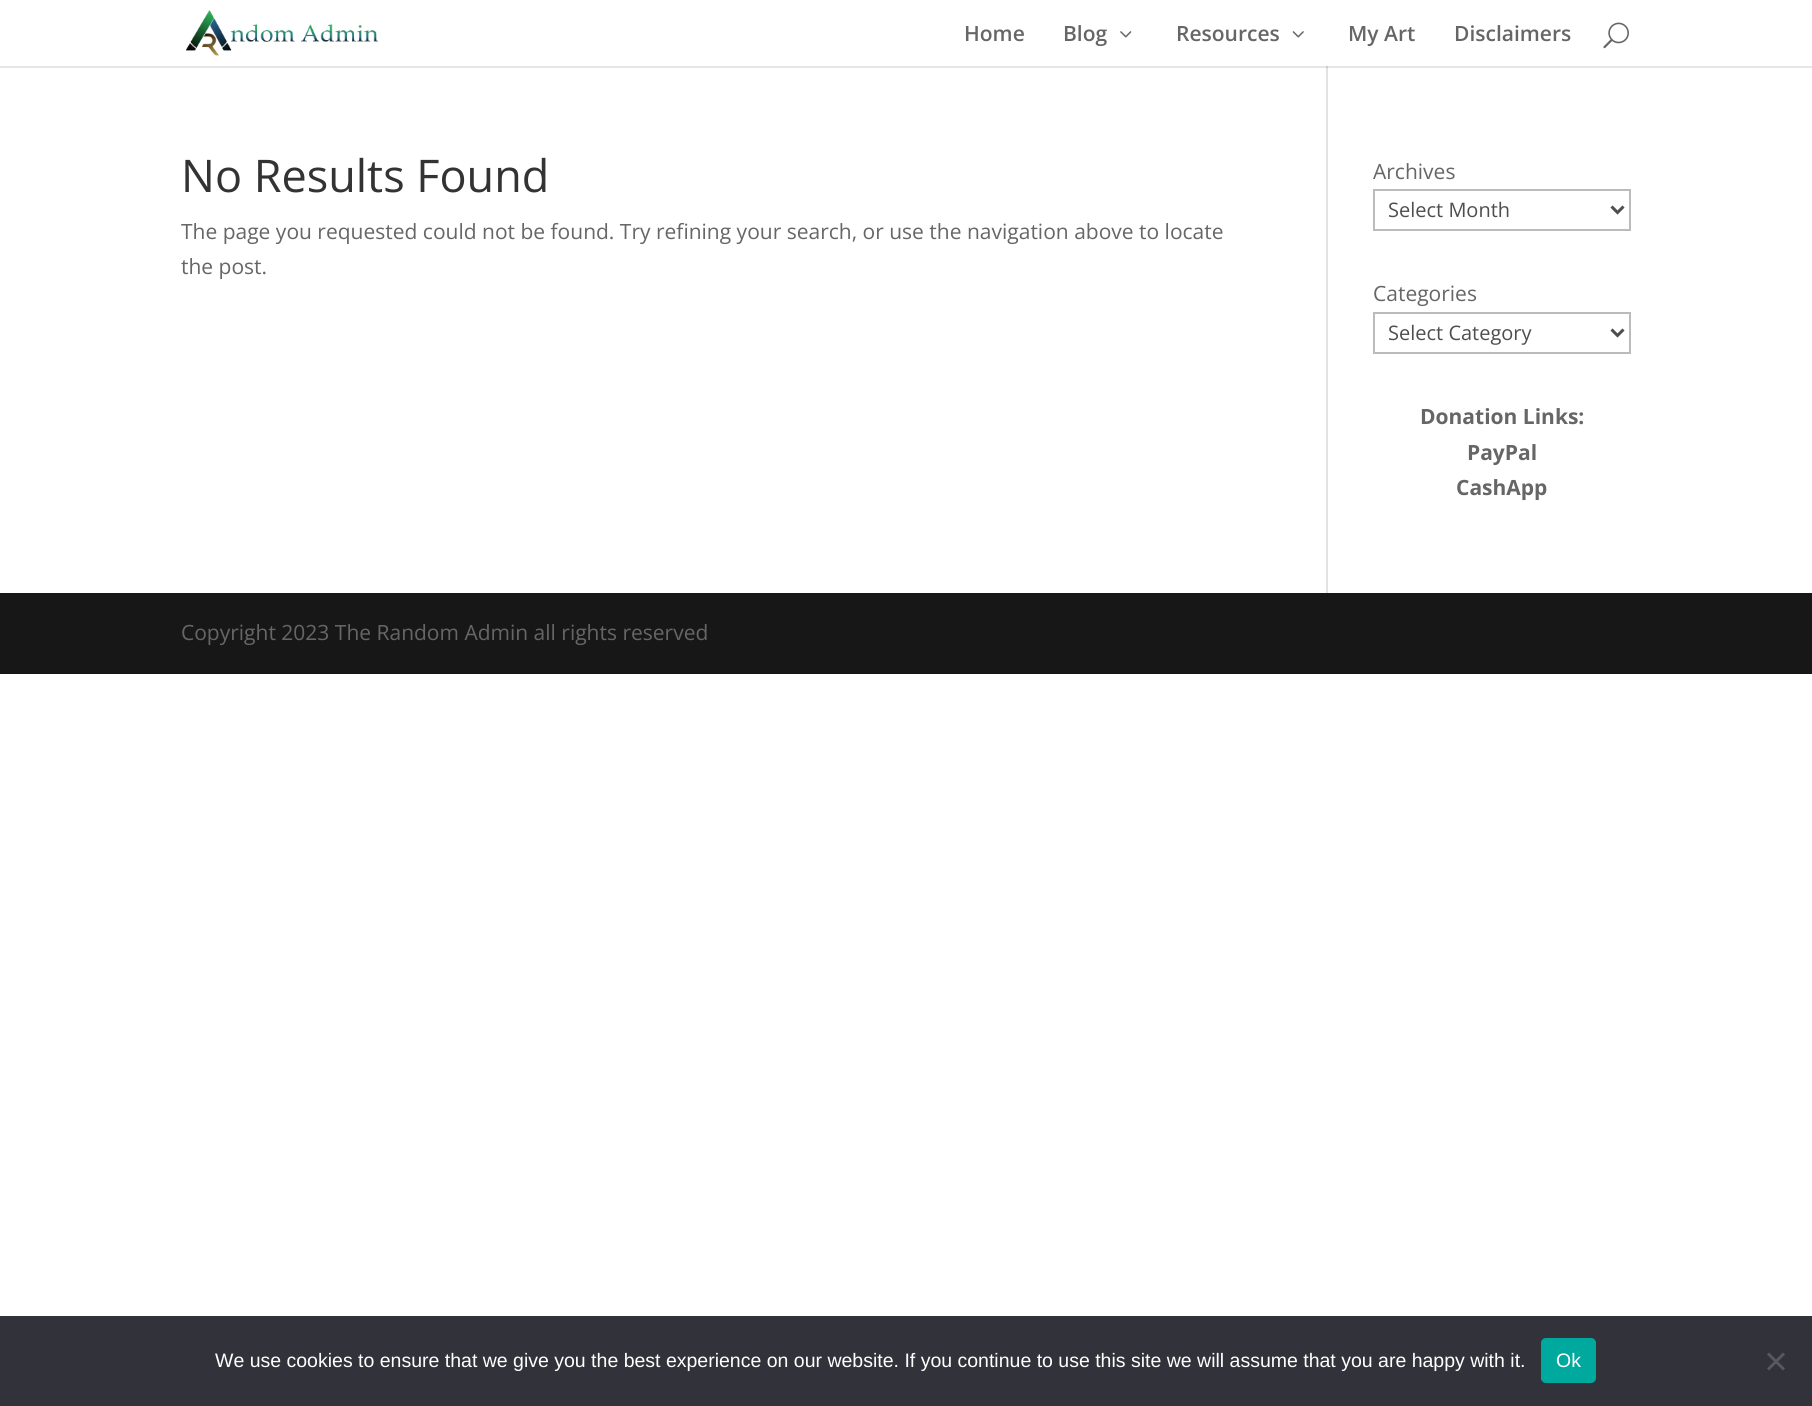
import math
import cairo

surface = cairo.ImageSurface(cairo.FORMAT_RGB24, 1812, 1406)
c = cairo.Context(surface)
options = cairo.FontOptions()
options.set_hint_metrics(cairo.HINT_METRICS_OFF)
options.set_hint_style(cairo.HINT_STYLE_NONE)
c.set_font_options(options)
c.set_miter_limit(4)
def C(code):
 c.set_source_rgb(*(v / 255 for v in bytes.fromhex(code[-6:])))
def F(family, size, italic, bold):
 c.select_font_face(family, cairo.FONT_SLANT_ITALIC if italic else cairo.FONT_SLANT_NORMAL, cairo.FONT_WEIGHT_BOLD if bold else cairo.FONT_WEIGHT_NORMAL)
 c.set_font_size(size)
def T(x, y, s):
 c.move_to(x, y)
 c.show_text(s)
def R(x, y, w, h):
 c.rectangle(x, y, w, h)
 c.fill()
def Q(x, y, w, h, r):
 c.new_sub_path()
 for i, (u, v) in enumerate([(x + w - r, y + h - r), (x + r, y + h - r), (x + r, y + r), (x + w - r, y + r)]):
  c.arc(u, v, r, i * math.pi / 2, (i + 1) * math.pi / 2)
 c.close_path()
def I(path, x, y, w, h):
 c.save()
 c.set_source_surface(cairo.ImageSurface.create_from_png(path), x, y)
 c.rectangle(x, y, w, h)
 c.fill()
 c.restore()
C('ffffff')
c.paint()
C('e6e6e6')
R(0,66,1812,2)
I('1.png',186,10,192,46)
F('Open Sans SemiBold',21,0,0)
C('666666')
T(964,41,'Home')
T(1063,41,'Blog')
I('2.png',1120,31,12,7)
T(1176,41,'Resources')
I('3.png',1292,31,12,7)
T(1348,41,'My Art')
T(1454,41,'Disclaimers')
I('4.png',1603,22,26,27)
C('e2e2e2')
R(1326,66,2,527)
C('cbcbcb')
R(1326,66,2,2)
F('Open Sans',45,0,0)
C('333333')
T(181,192,'No Results Found')
F('Open Sans',21,0,0)
C('666666')
T(181,239,'The page you requested could not be found. Try refining your search, or use the navigation above to locate')
T(181,274,'the post.')
T(1373,179,'Archives')
c.rectangle(1374,190,256,40)
C('bbbbbb')
c.stroke()
c.new_path()
c.move_to(1611.5,206.5)
c.line_to(1617.5,212.5)
c.line_to(1623.5,206.5)
C('4e4e4e')
c.set_line_width(3)
c.stroke()
F('Open Sans',20,0,0)
T(1388,217,'Select Month')
F('Open Sans',21,0,0)
C('666666')
T(1373,301,'Categories')
c.rectangle(1374,313,256,40)
C('bbbbbb')
c.set_line_width(2)
c.stroke()
c.new_path()
c.move_to(1611.5,329.5)
c.line_to(1617.5,335.5)
c.line_to(1623.5,329.5)
C('4e4e4e')
c.set_line_width(3)
c.stroke()
F('Open Sans',20,0,0)
T(1388,340,'Select Category')
F('Open Sans',21,0,1)
C('666666')
T(1420,424,'Donation Links:')
T(1467,460,'PayPal')
T(1456,495,'CashApp')
C('171717')
R(0,593,1812,81)
F('Open Sans',21,0,0)
C('666666')
T(181,640,'Copyright 2023 The Random Admin all rights reserved')
C('32323a')
R(0,1316,1812,90)
F('Liberation Sans',19.5,0,0)
C('ffffff')
T(215,1367,'We use cookies to ensure that we give you the best experience on our website. If you continue to use this site we will assume that you are happy with it.')
C('00a99d')
Q(1541,1338,55,45,5)
c.fill()
C('ffffff')
T(1556,1367,'Ok')
C('59595d')
c.new_path()
c.move_to(1783,1352.5)
c.line_to(1785,1354.5)
c.line_to(1769,1370.5)
c.line_to(1767,1368.5)
c.close_path()
c.fill()
c.new_path()
c.move_to(1767,1354.5)
c.line_to(1769,1352.5)
c.line_to(1785,1368.5)
c.line_to(1783,1370.5)
c.close_path()
c.fill()
surface.write_to_png('o.png')
